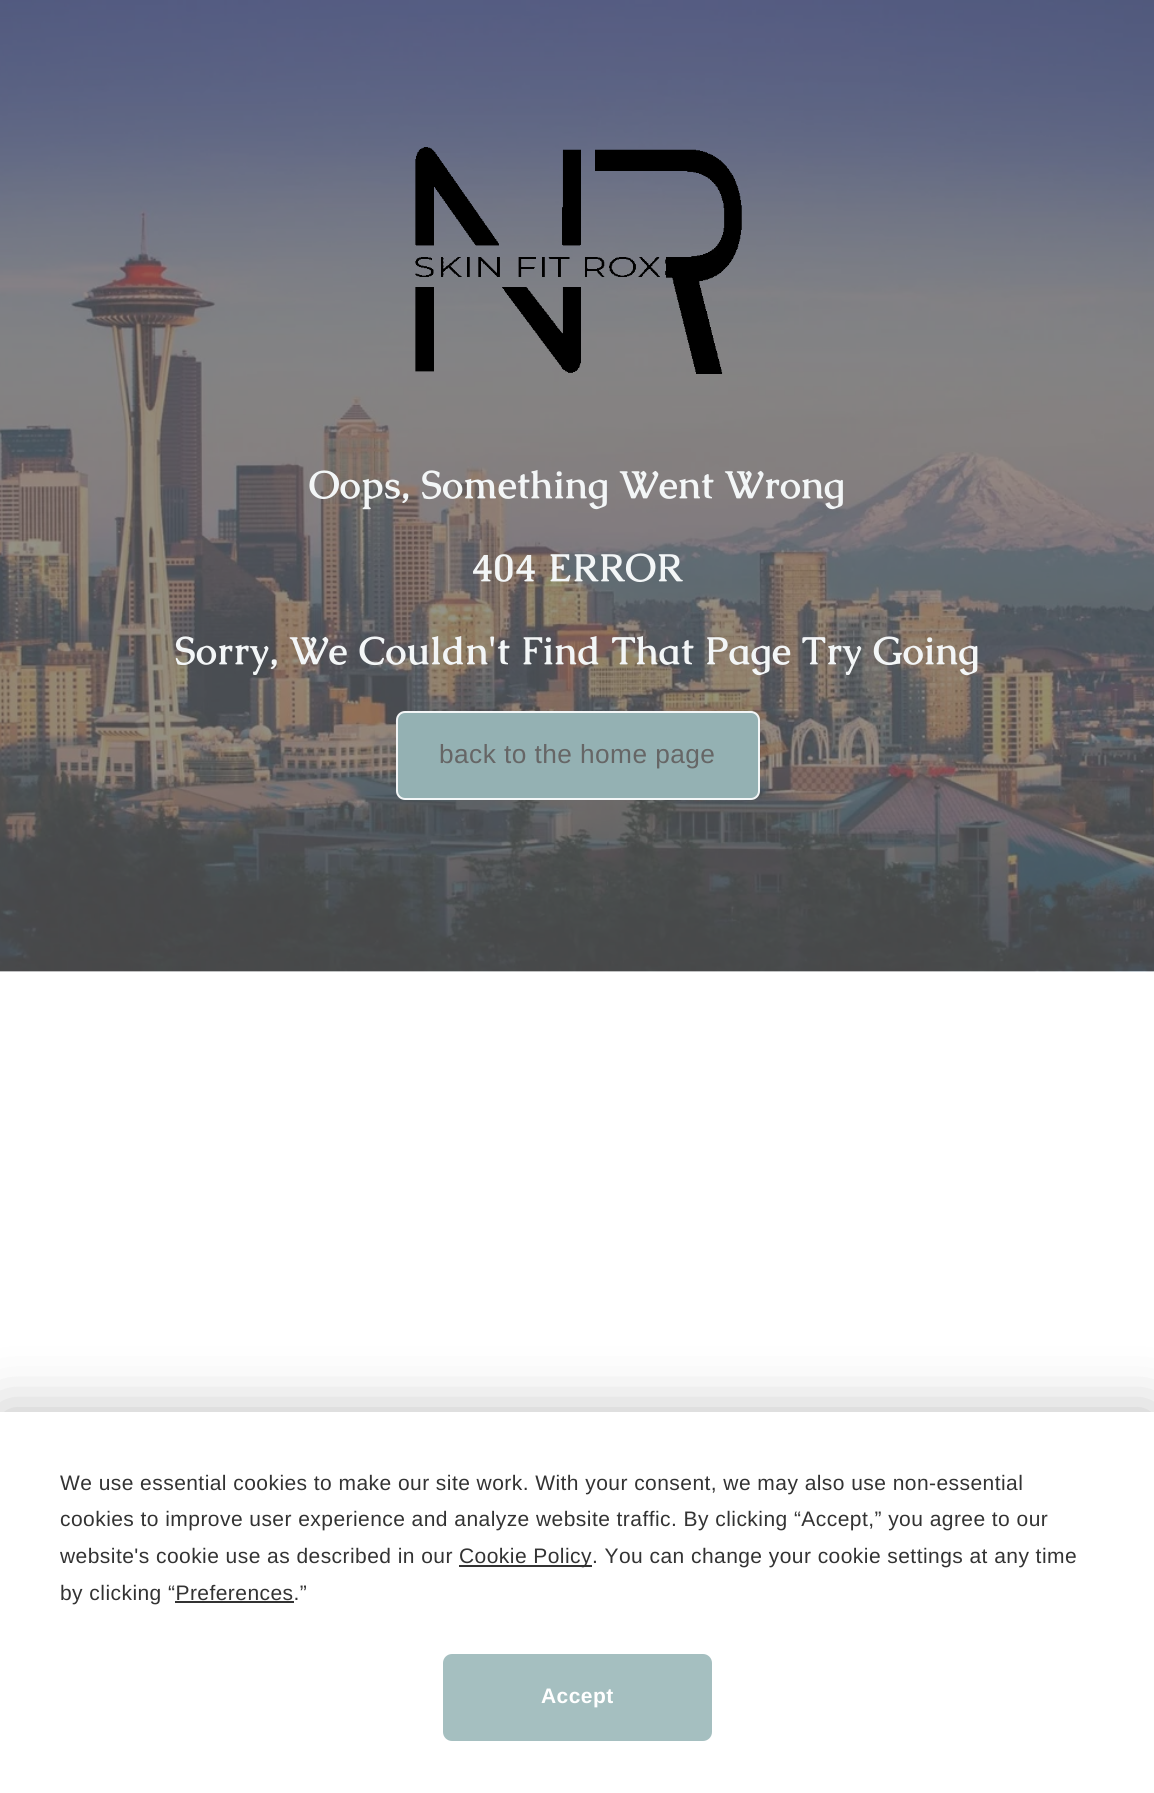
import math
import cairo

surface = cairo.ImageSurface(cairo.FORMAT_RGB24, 1154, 1793)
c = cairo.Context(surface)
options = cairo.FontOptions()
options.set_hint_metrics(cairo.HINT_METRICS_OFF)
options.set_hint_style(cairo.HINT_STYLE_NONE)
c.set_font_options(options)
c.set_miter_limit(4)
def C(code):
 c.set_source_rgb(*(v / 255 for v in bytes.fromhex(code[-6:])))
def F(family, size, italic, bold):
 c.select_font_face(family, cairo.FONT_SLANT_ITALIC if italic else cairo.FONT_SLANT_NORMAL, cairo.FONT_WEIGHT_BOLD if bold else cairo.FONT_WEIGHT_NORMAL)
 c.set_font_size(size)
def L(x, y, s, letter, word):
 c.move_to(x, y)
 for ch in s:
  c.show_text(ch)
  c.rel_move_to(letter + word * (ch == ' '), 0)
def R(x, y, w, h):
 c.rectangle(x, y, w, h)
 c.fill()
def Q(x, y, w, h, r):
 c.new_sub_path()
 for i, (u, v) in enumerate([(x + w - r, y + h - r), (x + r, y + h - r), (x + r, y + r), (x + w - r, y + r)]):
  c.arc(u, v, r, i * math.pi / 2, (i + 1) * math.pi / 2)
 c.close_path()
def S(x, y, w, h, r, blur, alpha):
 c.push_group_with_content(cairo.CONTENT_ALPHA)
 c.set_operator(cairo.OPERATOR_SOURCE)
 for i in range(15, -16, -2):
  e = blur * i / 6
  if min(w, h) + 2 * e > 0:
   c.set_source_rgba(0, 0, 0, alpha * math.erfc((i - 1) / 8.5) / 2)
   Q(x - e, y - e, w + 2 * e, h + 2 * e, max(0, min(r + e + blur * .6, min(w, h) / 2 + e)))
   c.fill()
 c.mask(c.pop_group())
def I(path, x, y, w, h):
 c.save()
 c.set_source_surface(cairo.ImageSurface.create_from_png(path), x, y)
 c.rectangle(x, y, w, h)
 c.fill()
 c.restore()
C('ffffff')
c.paint()
I('1.png',0,0,1154,972)
I('2.png',415,147,327,227)
F('Caudex',38.5,0,1)
C('f3f6f7')
L(309,498,'Oops, Something Went Wrong',.44,0)
L(472,581,'404 ERROR',.9,0)
L(175,664,'Sorry, We Couldn\'t Find That Page Try Going',.44,0)
C('94b1b3')
Q(397,712,362,87,8)
c.fill_preserve()
C('f3f6f7')
c.stroke()
F('Liberation Sans',26.25,0,0)
C('666666')
L(439,763,'back to the home page',.44,0)
C('000000')
S(0,1412,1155,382,0,30.5,.25)
C('ffffff')
R(0,1412,1154,381)
F('Liberation Sans',21,0,0)
C('333333')
L(60,1490,'We use essential cookies to make our site work. With your consent, we may also use non-essential',.44,0)
L(60,1526,'cookies to improve user experience and analyze website traffic. By clicking “Accept,” you agree to our',.44,0)
L(60,1563,'website\'s cookie use as described in our',.44,0)
R(459,1565,133,2)
L(459,1563,'Cookie Policy. You can change your cookie settings at any time',.44,0)
L(60,1600,'by clicking “Preferences.”',.44,0)
R(175,1601,119,2)
C('a5bfc0')
Q(444,1655,267,85,8)
c.fill_preserve()
c.stroke()
F('Liberation Sans',21,0,1)
C('ffffff')
L(541,1703,'Accept',.44,0)
surface.write_to_png('o.png')
